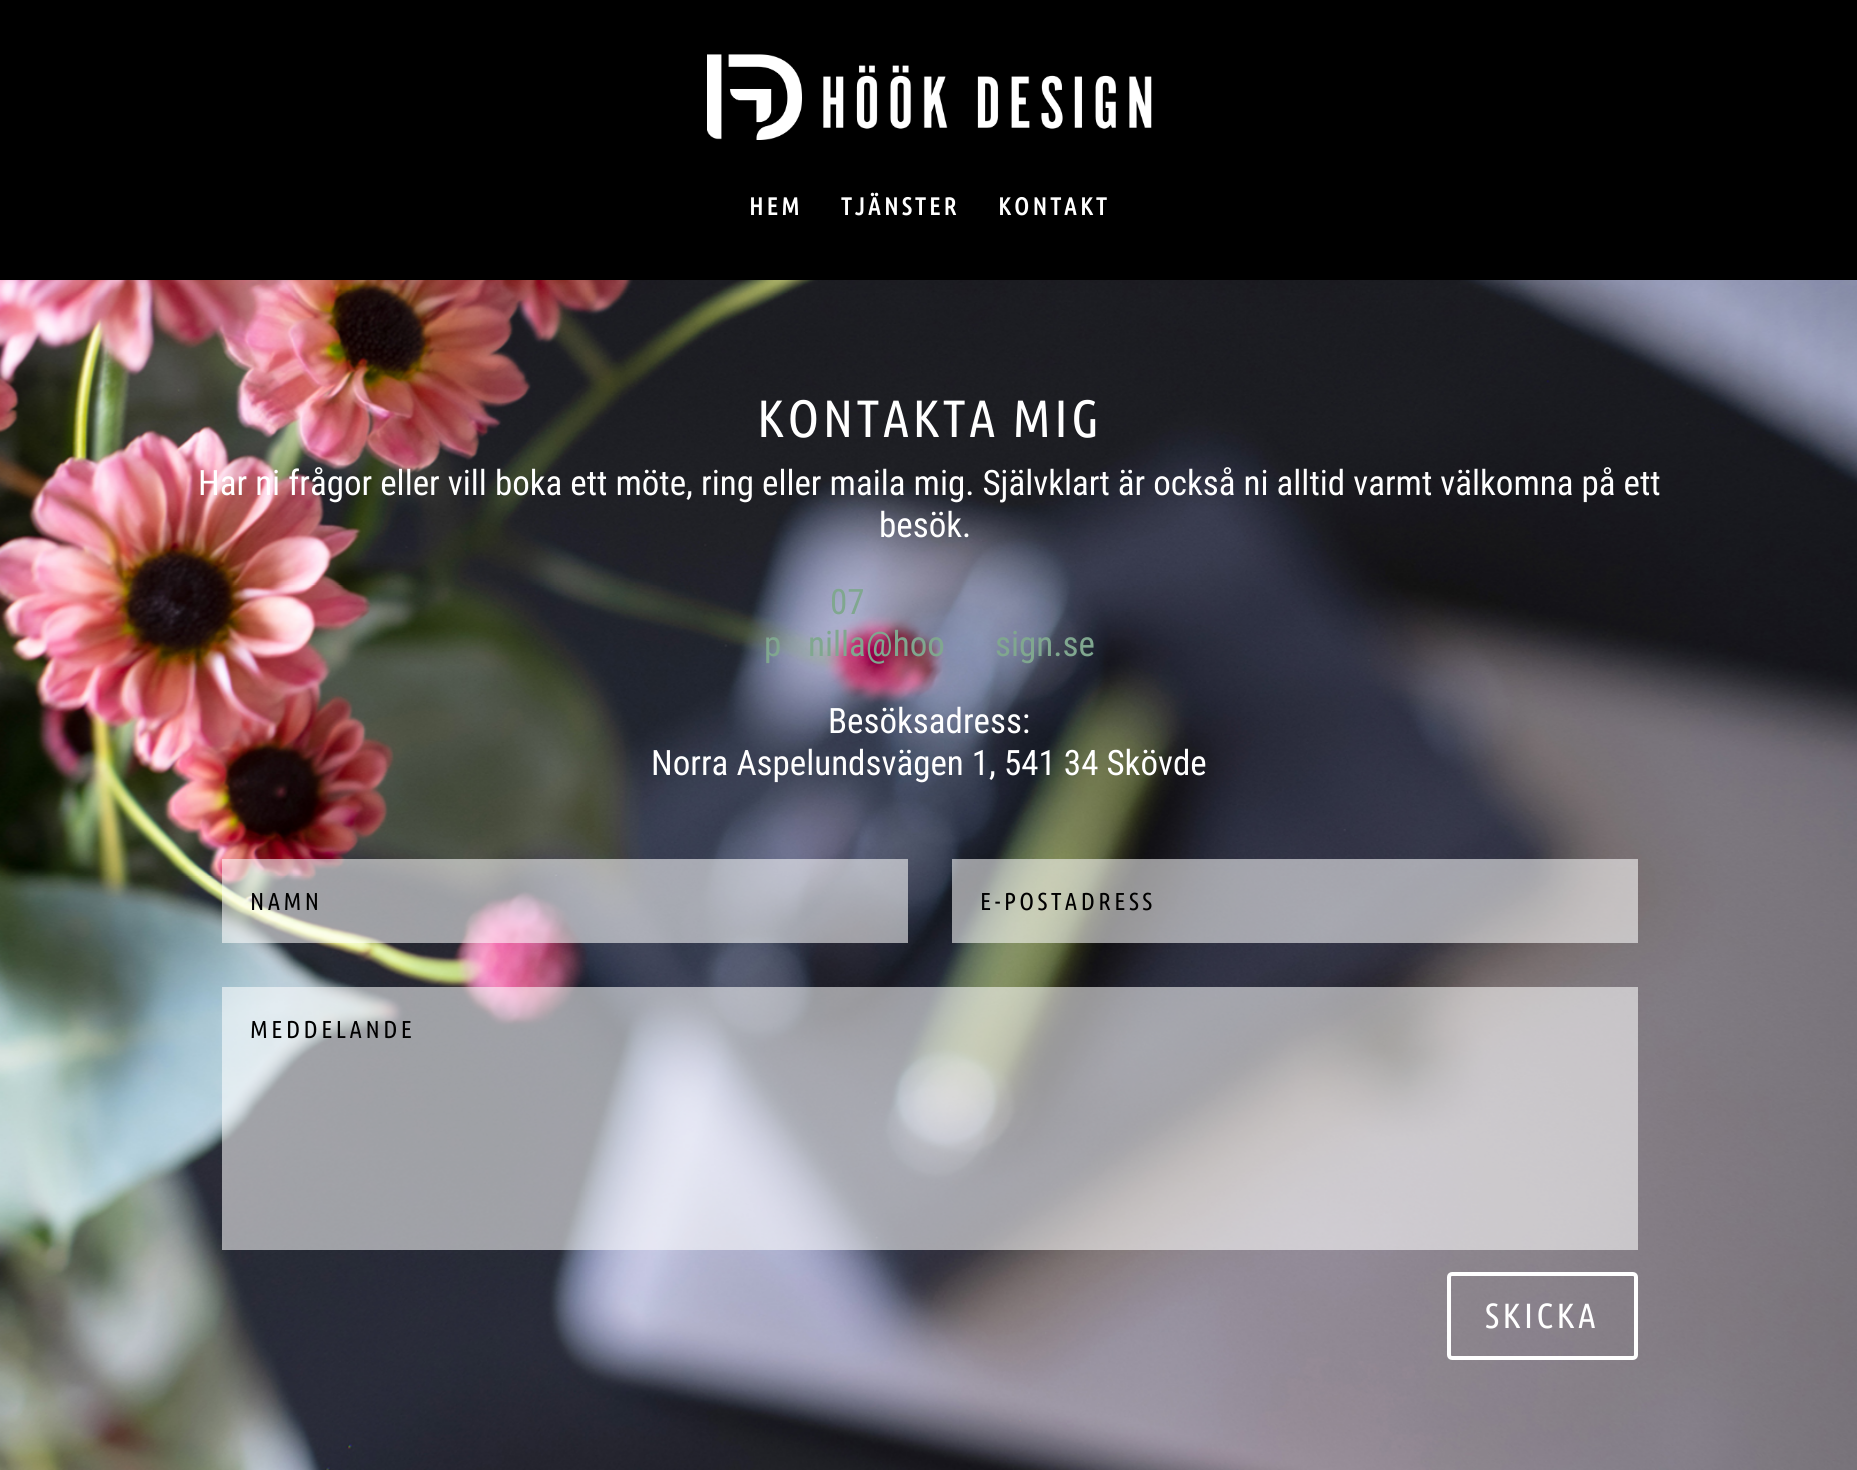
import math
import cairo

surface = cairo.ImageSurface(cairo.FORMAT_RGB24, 1857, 1470)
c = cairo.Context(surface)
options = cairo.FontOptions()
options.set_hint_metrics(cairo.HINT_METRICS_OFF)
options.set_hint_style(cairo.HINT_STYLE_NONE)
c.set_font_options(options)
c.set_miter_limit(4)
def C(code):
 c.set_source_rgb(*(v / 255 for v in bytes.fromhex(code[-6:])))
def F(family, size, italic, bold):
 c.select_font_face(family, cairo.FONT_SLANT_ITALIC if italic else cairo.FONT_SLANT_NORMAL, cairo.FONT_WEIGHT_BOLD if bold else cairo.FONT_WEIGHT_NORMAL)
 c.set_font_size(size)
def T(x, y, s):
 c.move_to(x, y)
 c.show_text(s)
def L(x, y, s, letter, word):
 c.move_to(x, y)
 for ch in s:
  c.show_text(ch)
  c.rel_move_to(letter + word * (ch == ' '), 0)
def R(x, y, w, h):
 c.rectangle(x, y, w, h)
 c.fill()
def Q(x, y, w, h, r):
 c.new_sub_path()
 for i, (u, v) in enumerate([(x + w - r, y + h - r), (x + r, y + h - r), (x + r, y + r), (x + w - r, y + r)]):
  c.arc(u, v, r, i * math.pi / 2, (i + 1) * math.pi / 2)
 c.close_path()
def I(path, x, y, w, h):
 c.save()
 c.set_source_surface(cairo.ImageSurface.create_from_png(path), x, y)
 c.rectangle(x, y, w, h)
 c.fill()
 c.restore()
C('ffffff')
c.paint()
C('000000')
R(0,0,1857,280)
I('1.png',707,54,445,86)
F('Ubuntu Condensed',24.5,0,1)
C('ffffff')
L(749,215,'HEM',3.5,0)
L(841,215,'TJÄNSTER',3.5,0)
L(998,215,'KONTAKT',3.5,0)
I('2.png',0,280,1857,1190)
F('Ubuntu Condensed',52.5,0,0)
L(757,437,'KONTAKTA MIG',3.5,0)
F('Roboto Condensed',35,0,0)
T(198,495,'Har ni frågor eller vill boka ett möte, ring eller maila mig. Självklart är också ni alltid varmt välkomna på ett')
T(879,537,'besök.')
C('80a78f')
T(830,614,'07')
T(764,656,'p')
T(808,656,'nilla@hoo')
T(995,656,'sign.se')
C('ffffff')
T(828,733,'Besöksadress:')
T(651,775,'Norra Aspelundsvägen 1, 541 34 Skövde')
c.set_source_rgba(1,1,1,0.56)
R(222,859,686,84)
F('Ubuntu Condensed',24.5,0,0)
C('000000')
L(250,910,'NAMN',3.5,0)
c.set_source_rgba(1,1,1,0.56)
R(952,859,686,84)
C('000000')
L(980,910,'E-POSTADRESS',3.5,0)
c.set_source_rgba(1,1,1,0.56)
R(222,987,1416,263)
C('000000')
L(250,1038,'MEDDELANDE',3.5,0)
Q(1449,1274,187,84,3)
C('ffffff')
c.set_line_width(4)
c.stroke()
F('Ubuntu Condensed',35,0,0)
L(1485,1328,'SKICKA',3.5,0)
surface.write_to_png('o.png')
